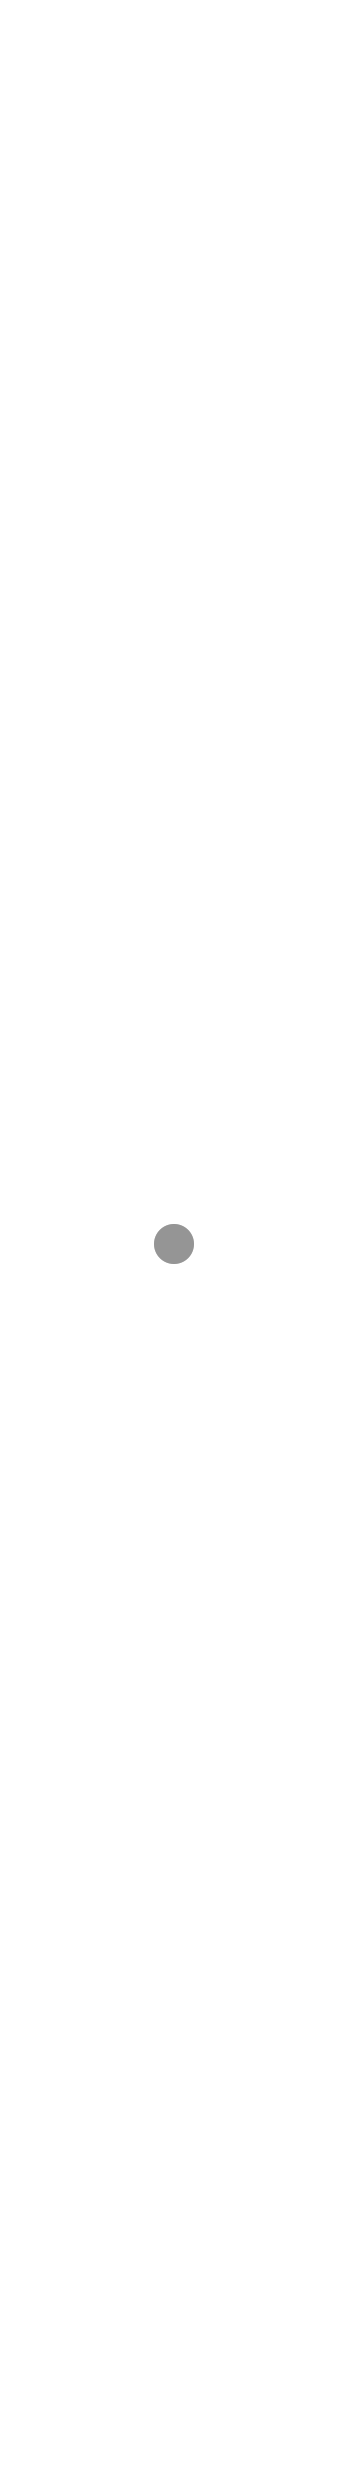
import math
import cairo

surface = cairo.ImageSurface(cairo.FORMAT_RGB24, 348, 2487)
c = cairo.Context(surface)
options = cairo.FontOptions()
options.set_hint_metrics(cairo.HINT_METRICS_OFF)
options.set_hint_style(cairo.HINT_STYLE_NONE)
c.set_font_options(options)
c.set_miter_limit(4)
def C(code):
 c.set_source_rgb(*(v / 255 for v in bytes.fromhex(code[-6:])))
C('ffffff')
c.paint()
C('b3b3b3')
c.arc(174,1244,20,0,2 * math.pi)
c.fill()
c.set_source_rgba(0.502,0.502,0.502,0.6)
c.arc(174,1244,20,0,2 * math.pi)
c.fill()
surface.write_to_png('o.png')
